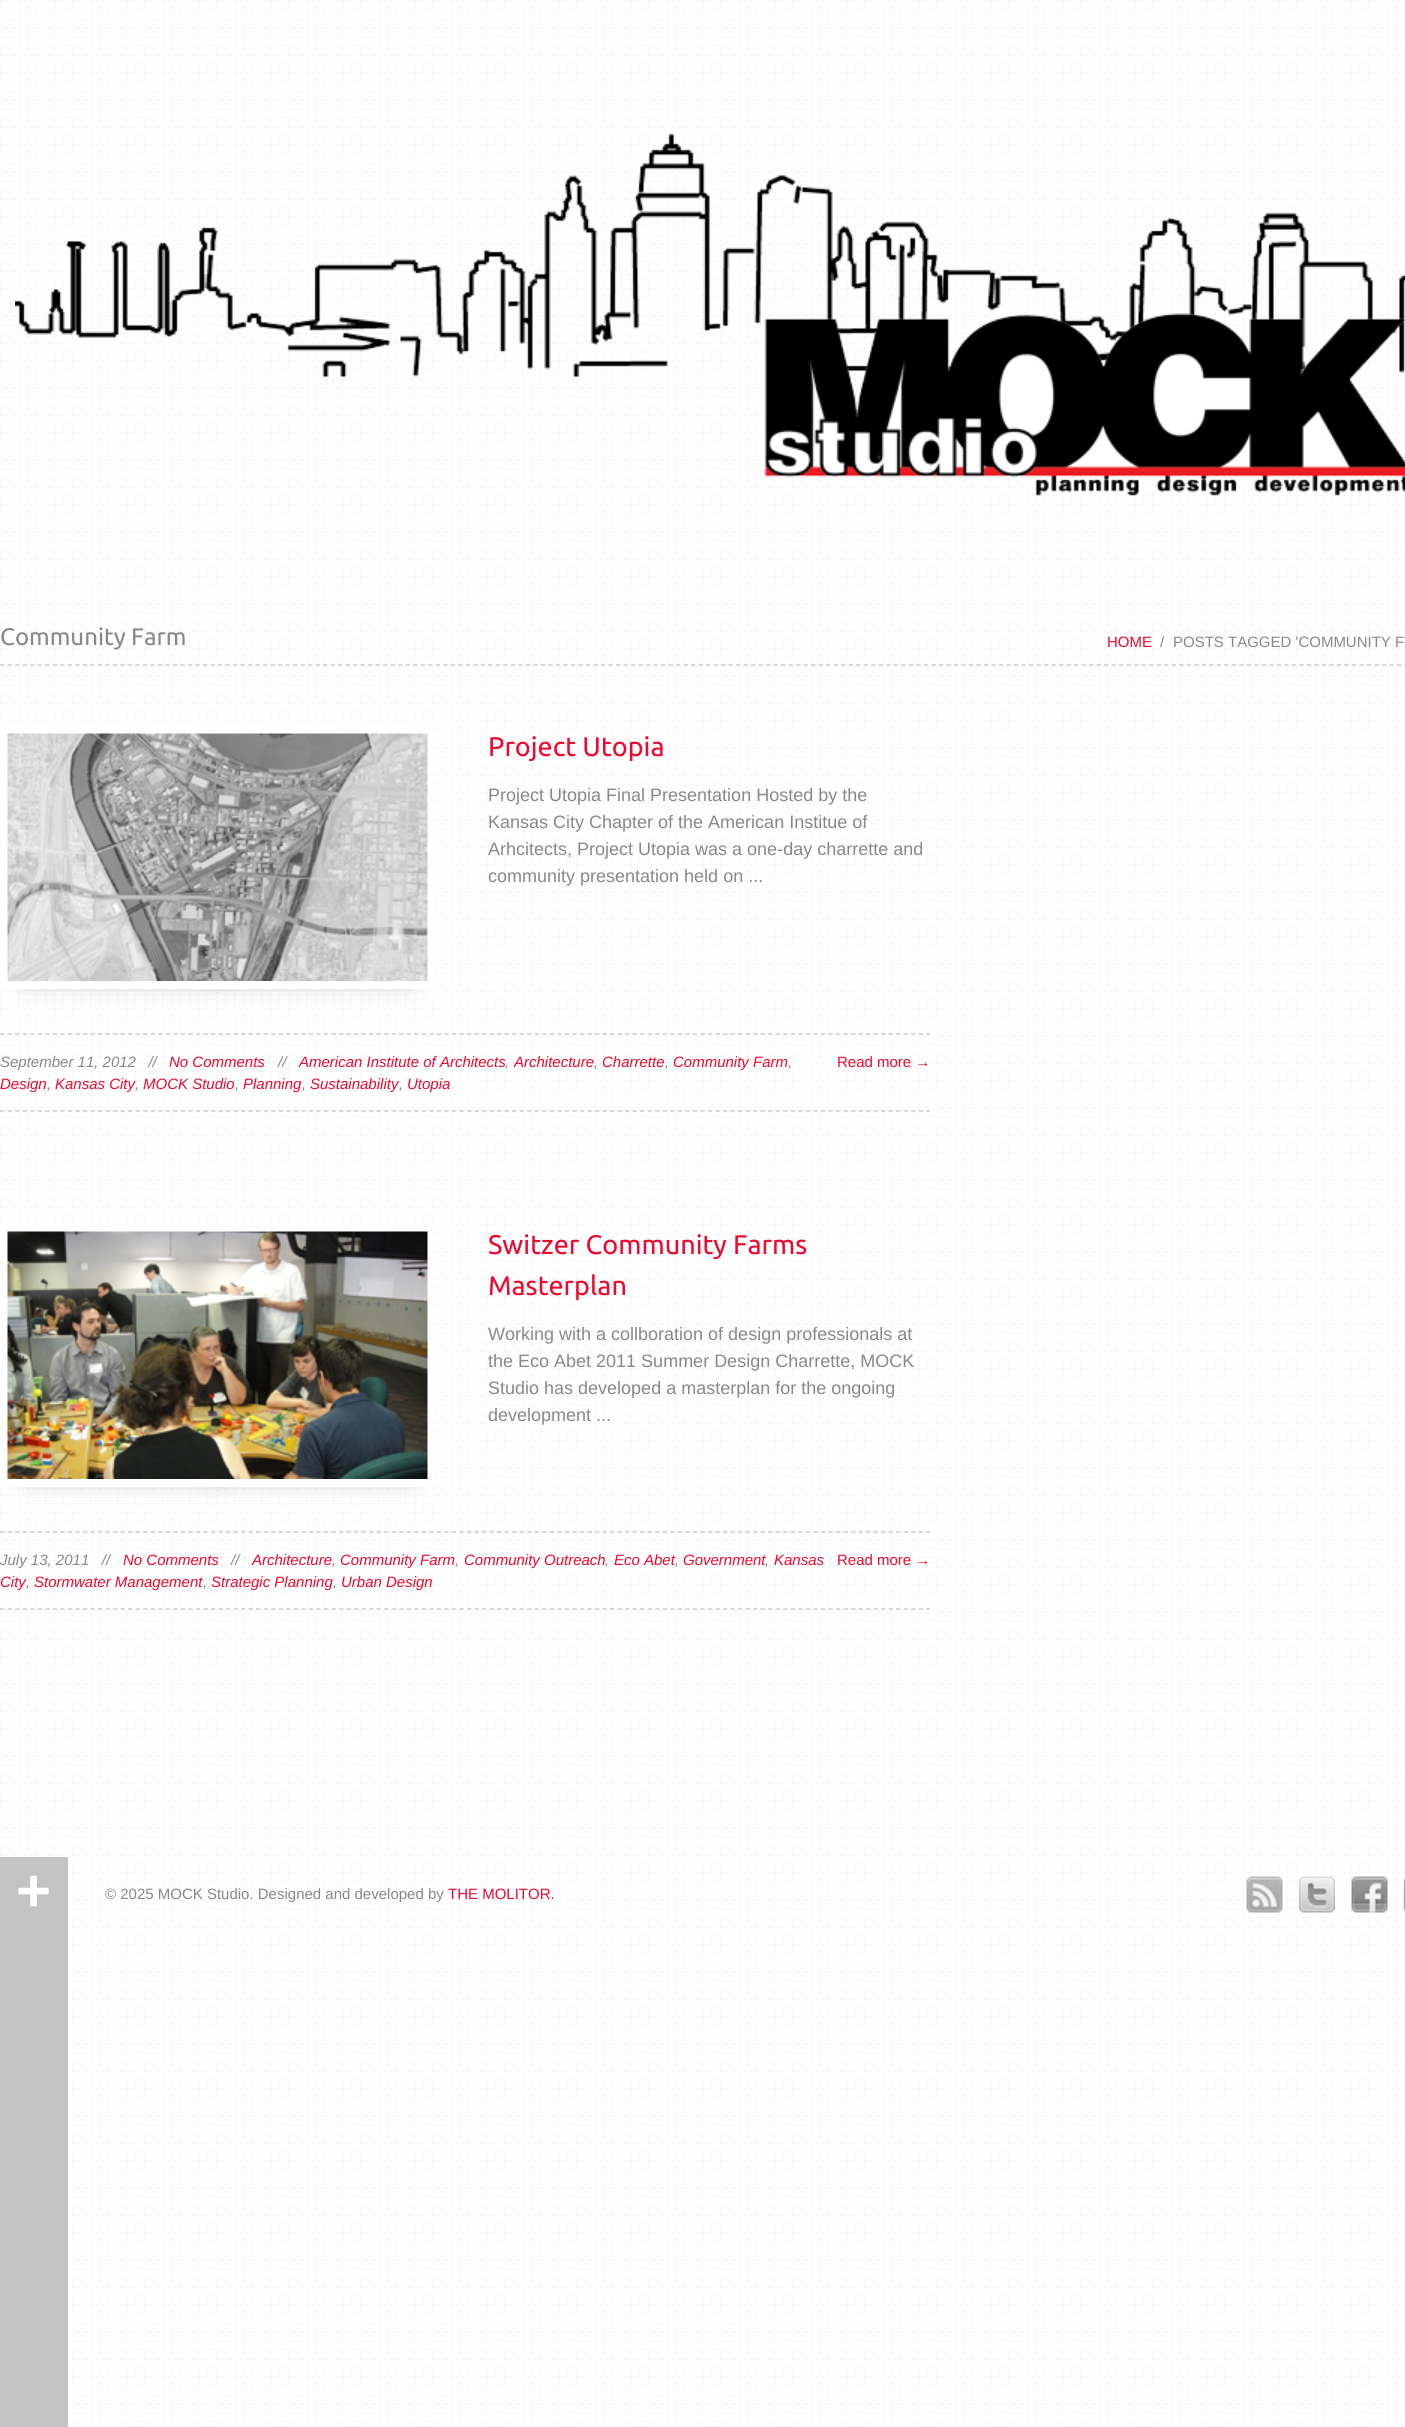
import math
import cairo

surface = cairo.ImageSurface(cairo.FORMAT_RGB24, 1405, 2427)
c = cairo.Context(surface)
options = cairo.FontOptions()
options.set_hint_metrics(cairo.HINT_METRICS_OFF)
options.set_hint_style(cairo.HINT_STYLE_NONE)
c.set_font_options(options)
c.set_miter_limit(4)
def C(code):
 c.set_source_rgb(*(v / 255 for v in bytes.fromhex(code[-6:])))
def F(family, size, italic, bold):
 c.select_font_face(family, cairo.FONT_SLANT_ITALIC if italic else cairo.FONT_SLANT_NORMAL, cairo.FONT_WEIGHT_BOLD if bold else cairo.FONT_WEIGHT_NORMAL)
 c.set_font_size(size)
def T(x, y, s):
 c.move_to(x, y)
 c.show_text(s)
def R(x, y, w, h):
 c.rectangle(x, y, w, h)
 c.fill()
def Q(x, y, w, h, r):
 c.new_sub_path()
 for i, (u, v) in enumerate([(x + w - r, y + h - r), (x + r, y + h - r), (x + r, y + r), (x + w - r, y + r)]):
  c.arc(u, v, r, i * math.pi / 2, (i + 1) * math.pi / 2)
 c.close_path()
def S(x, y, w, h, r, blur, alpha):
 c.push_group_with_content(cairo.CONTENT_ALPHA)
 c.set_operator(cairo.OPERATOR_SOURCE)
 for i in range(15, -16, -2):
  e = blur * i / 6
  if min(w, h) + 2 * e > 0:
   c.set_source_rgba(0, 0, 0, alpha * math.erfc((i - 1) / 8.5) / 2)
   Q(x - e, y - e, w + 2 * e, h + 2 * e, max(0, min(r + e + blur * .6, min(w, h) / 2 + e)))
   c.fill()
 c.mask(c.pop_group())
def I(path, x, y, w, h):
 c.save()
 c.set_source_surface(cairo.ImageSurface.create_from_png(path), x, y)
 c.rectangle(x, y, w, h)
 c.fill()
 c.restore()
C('ffffff')
c.paint()
I('1.png',0,0,1405,2425)
I('2.png',15,133,1390,363)
c.new_path()
c.move_to(0,665)
c.line_to(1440,665)
C('cccccc')
c.set_line_width(1.5)
c.set_dash([4.5,3.01])
c.stroke()
F('Ubuntu',24,0,0)
C('888888')
T(0,645,'Community Farm')
c.new_path()
c.move_to(0,667)
c.line_to(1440,667)
C('ffffff')
c.stroke()
F('Liberation Sans',15,0,0)
C('ed092f')
T(1107,647,'HOME')
C('888888')
T(1160,647,'/')
T(1173,647,'POSTS TAGGED \'COMMUNITY F')
C('000000')
S(26,842,189,136,0,12,.4)
S(221,842,189,136,0,12,.4)
C('ffffff')
R(0,726,435,263)
I('3.png',7,733,421,248)
F('Ubuntu',27,0,0)
C('ed092f')
T(488,756,'Project Utopia')
F('Liberation Sans',18,0,0)
C('888888')
T(488,801,'Project Utopia Final Presentation Hosted by the')
T(488,828,'Kansas City Chapter of the American Institue of')
T(488,855,'Arhcitects, Project Utopia was a one-day charrette and')
T(488,882,'community presentation held on ...')
c.new_path()
c.move_to(0,1034)
c.line_to(930,1034)
C('cccccc')
c.set_dash([4.5,3.03])
c.stroke()
c.new_path()
c.move_to(0,1112)
c.line_to(930,1112)
C('ffffff')
c.stroke()
c.new_path()
c.move_to(0,1111)
c.line_to(930,1111)
C('cccccc')
c.stroke()
c.new_path()
c.move_to(0,1058)
c.line_to(930,1058)
C('ffffff')
c.stroke()
F('Liberation Sans',15,1,0)
C('888888')
T(0,1067,'September 11, 2012   //')
C('ed092f')
T(169,1067,'No Comments')
C('888888')
T(278,1067,'//')
C('ed092f')
T(299,1067,'American Institute of Architects')
T(514,1067,'Architecture')
T(602,1067,'Charrette')
T(673,1067,'Community Farm')
F('Liberation Sans',15,0,0)
T(837,1067,'Read more →')
F('Liberation Sans',15,1,0)
C('888888')
T(505,1067,',')
T(594,1067,',')
T(665,1067,',')
T(788,1067,',')
C('ed092f')
T(0,1089,'Design')
C('888888')
T(47,1089,',')
C('ed092f')
T(55,1089,'Kansas City')
C('888888')
T(135,1089,',')
C('ed092f')
T(143,1089,'MOCK Studio')
C('888888')
T(235,1089,',')
C('ed092f')
T(243,1089,'Planning')
C('888888')
T(302,1089,',')
C('ed092f')
T(310,1089,'Sustainability')
T(407,1089,'Utopia')
C('888888')
T(399,1089,',')
C('000000')
S(26,1340,189,136,0,12,.4)
S(221,1340,189,136,0,12,.4)
C('ffffff')
R(0,1224,435,263)
I('4.png',7,1231,421,248)
F('Ubuntu',27,0,0)
C('ed092f')
T(488,1254,'Switzer Community Farms')
T(488,1295,'Masterplan')
F('Liberation Sans',18,0,0)
C('888888')
T(488,1340,'Working with a collboration of design professionals at')
T(488,1367,'the Eco Abet 2011 Summer Design Charrette, MOCK')
T(488,1394,'Studio has developed a masterplan for the ongoing')
T(488,1421,'development ...')
c.new_path()
c.move_to(0,1532)
c.line_to(930,1532)
C('cccccc')
c.stroke()
c.new_path()
c.move_to(0,1610)
c.line_to(930,1610)
C('ffffff')
c.stroke()
c.new_path()
c.move_to(0,1609)
c.line_to(930,1609)
C('cccccc')
c.stroke()
c.new_path()
c.move_to(0,1556)
c.line_to(930,1556)
C('ffffff')
c.stroke()
F('Liberation Sans',15,1,0)
C('888888')
T(0,1565,'July 13, 2011   //')
C('ed092f')
T(123,1565,'No Comments')
C('888888')
T(231,1565,'//')
C('ed092f')
T(252,1565,'Architecture')
T(340,1565,'Community Farm')
T(464,1565,'Community Outreach')
T(614,1565,'Eco Abet')
T(683,1565,'Government')
T(774,1565,'Kansas')
F('Liberation Sans',15,0,0)
T(837,1565,'Read more →')
F('Liberation Sans',15,1,0)
C('888888')
T(332,1565,',')
T(455,1565,',')
T(605,1565,',')
T(675,1565,',')
T(765,1565,',')
C('ed092f')
T(0,1587,'City')
C('888888')
T(26,1587,',')
C('ed092f')
T(34,1587,'Stormwater Management')
T(211,1587,'Strategic Planning')
T(341,1587,'Urban Design')
C('888888')
T(203,1587,',')
T(333,1587,',')
C('c3c3c3')
R(0,1857,68,570)
F('Liberation Sans',60,0,1)
C('ffffff')
T(16,1911,'+')
F('Liberation Sans',15,0,0)
C('888888')
T(105,1899,'© 2025 MOCK Studio. Designed and developed by')
C('ed092f')
T(448,1899,'THE MOLITOR.')
I('5.png',1245,1875,38,38)
I('6.png',1298,1875,37,38)
I('7.png',1350,1875,38,38)
I('8.png',1403,1878,2,33)
surface.write_to_png('o.png')
